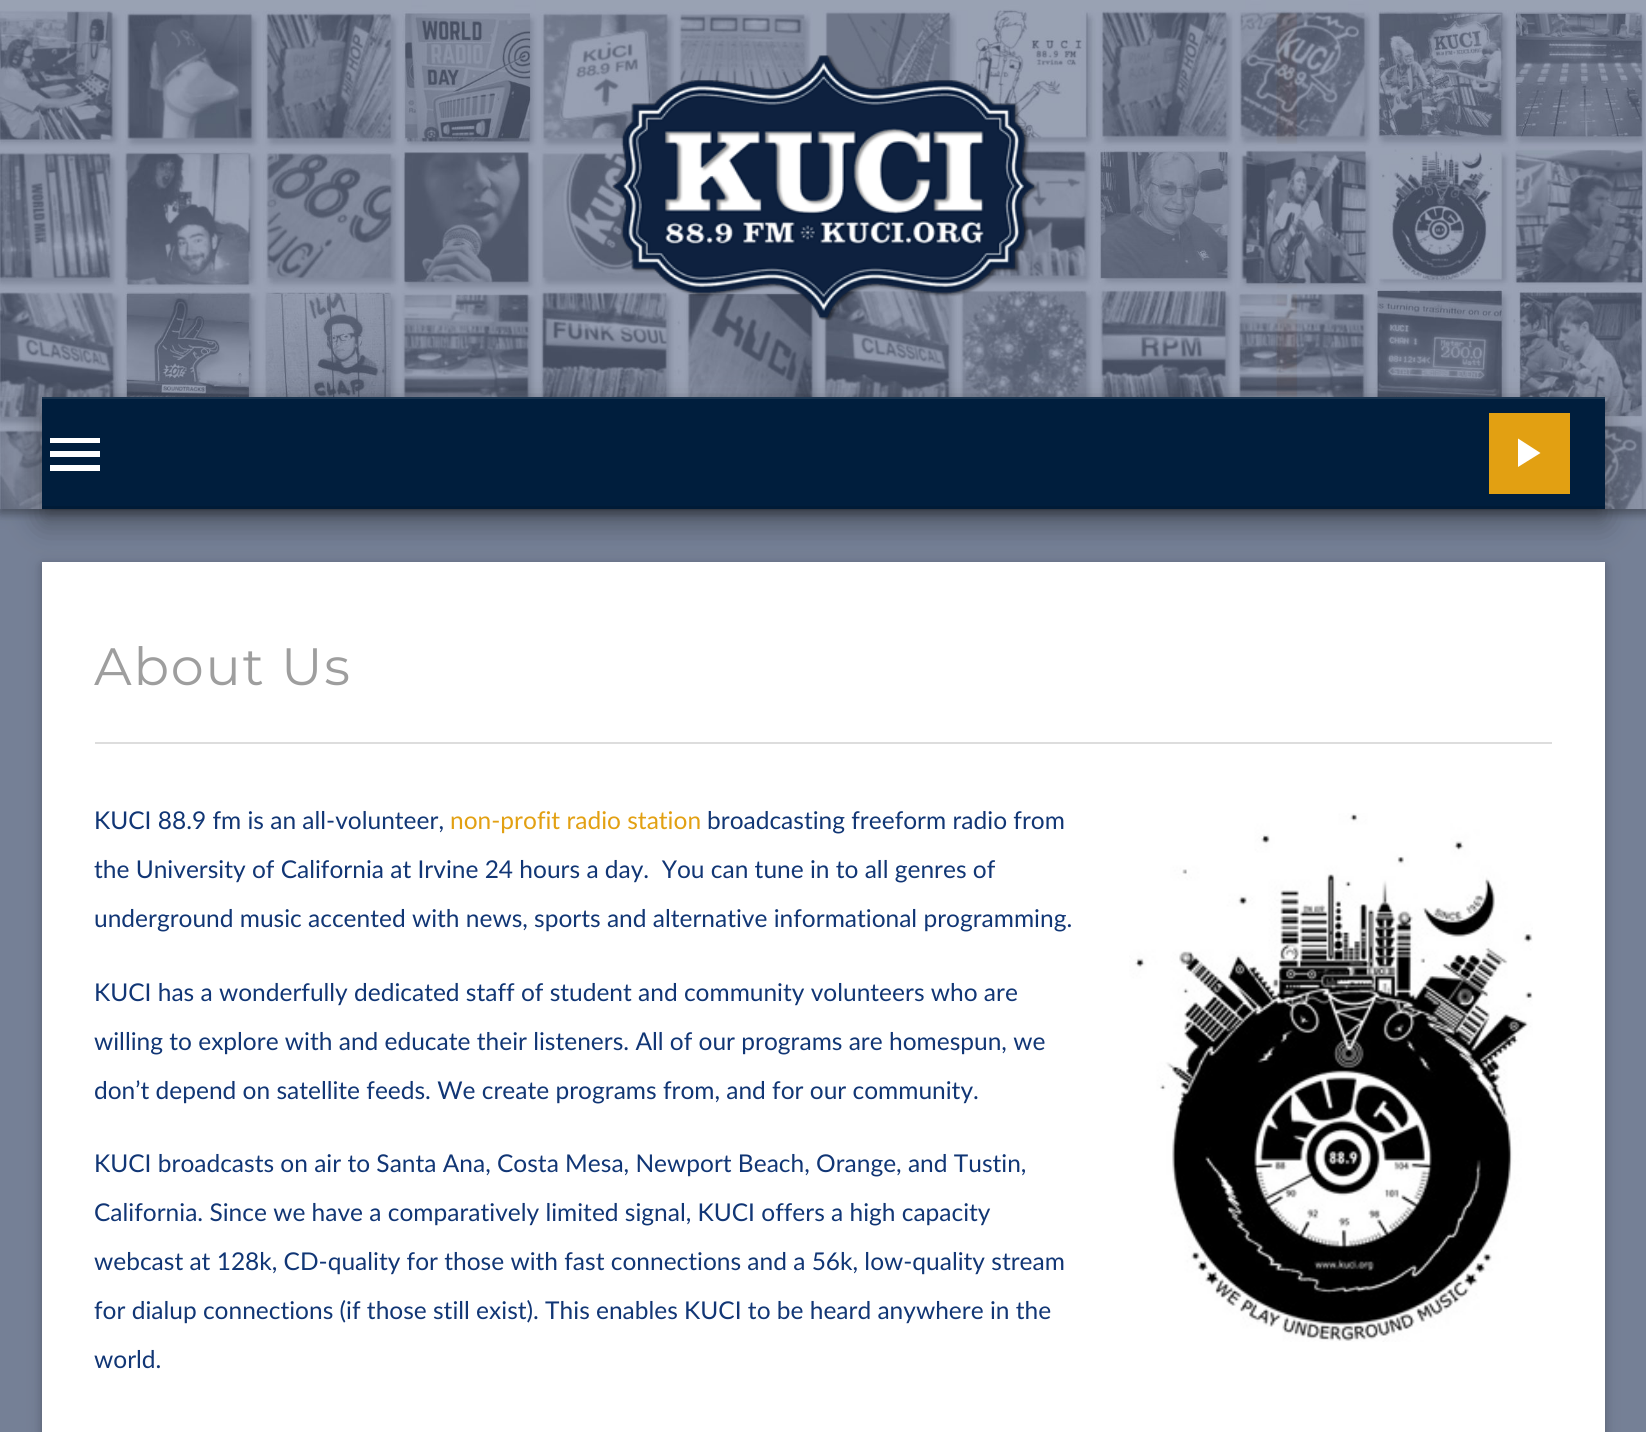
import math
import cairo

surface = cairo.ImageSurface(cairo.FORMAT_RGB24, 1646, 1432)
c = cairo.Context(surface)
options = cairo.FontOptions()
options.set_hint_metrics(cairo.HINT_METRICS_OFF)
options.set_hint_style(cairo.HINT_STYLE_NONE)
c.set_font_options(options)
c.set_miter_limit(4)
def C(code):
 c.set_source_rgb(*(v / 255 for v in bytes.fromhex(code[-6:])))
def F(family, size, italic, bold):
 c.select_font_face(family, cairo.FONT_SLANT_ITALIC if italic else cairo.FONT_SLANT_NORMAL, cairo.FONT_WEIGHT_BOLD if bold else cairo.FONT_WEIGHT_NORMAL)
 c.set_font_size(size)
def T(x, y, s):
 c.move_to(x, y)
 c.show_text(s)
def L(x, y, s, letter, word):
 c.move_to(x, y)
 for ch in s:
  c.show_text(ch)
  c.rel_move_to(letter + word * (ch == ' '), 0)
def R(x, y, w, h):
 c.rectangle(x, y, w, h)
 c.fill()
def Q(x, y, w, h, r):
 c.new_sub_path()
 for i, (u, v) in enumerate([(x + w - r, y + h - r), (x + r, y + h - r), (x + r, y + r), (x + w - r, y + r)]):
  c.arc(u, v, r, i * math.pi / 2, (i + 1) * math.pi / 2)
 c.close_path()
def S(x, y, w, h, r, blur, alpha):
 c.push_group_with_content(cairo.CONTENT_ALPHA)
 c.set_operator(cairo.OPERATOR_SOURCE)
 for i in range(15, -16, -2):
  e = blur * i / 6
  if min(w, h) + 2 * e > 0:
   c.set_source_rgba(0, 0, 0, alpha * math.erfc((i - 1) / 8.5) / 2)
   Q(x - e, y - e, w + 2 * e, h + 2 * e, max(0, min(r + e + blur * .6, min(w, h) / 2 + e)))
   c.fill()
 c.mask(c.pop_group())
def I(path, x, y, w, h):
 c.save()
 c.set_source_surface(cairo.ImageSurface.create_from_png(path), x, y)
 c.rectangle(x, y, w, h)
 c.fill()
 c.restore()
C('758096')
c.paint()
C('000000')
S(0,4,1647,509,0,9,.12)
S(0,4,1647,509,0,4.5,.16)
I('1.png',0,0,1646,509)
I('2.png',612,55,427,266)
c.save()
c.set_fill_rule(cairo.FILL_RULE_EVEN_ODD)
c.new_path()
c.move_to(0,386)
c.line_to(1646,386)
c.line_to(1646,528)
c.line_to(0,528)
c.close_path()
c.move_to(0,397)
c.line_to(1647,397)
c.line_to(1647,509)
c.line_to(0,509)
c.close_path()
c.clip()
S(0,401,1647,112,0,4.5,.16)
c.restore()
S(42,408,1563,112,0,17.5,.19)
S(42,411,1563,112,0,15,.2)
C('001e3d')
R(42,399,1563,110)
C('1a3550')
R(42,397,1563,2)
c.set_source_rgba(0,0,0,0.1)
R(42,506,1563,4)
C('ffffff')
c.new_path()
c.move_to(50,471)
c.line_to(100,471)
c.line_to(100,465)
c.line_to(50,465)
c.close_path()
c.move_to(50,457)
c.line_to(100,457)
c.line_to(100,451)
c.line_to(50,451)
c.close_path()
c.move_to(50,438)
c.line_to(50,443)
c.line_to(100,443)
c.line_to(100,438)
c.close_path()
c.fill()
C('e2a012')
R(1489,413,81,81)
C('ffffff')
c.new_path()
c.move_to(1518,438.5)
c.line_to(1518,467)
c.line_to(1540.5,453)
c.close_path()
c.fill()
C('000000')
S(42,565,1563,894,0,9,.12)
S(42,565,1563,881,0,4.5,.16)
C('ffffff')
R(42,562,1563,870)
F('Montserrat',52.5,0,0)
C('9e9e9e')
L(94,685,'About Us',1.75,0)
C('dddddd')
R(95,742,1457,2)
F('Lato',24.5,0,0)
C('113675')
T(94,829,'KUCI 88.9 fm is an all-volunteer,')
C('e2a012')
T(450,829,'non-profit radio station')
C('113675')
T(707,829,'broadcasting freeform radio from')
T(94,878,'the University of California at Irvine 24 hours a day.  You can tune in to all genres of')
T(94,927,'underground music accented with news, sports and alternative informational programming.')
I('3.png',1129,813,404,529)
T(94,1001,'KUCI has a wonderfully dedicated staff of student and community volunteers who are')
T(94,1050,'willing to explore with and educate their listeners. All of our programs are homespun, we')
T(94,1099,'don’t depend on satellite feeds. We create programs from, and for our community.')
T(94,1172,'KUCI broadcasts on air to Santa Ana, Costa Mesa, Newport Beach, Orange, and Tustin,')
T(94,1221,'California. Since we have a comparatively limited signal, KUCI offers a high capacity')
T(94,1270,'webcast at 128k, CD-quality for those with fast connections and a 56k, low-quality stream')
T(94,1319,'for dialup connections (if those still exist). This enables KUCI to be heard anywhere in the')
T(94,1368,'world.')
surface.write_to_png('o.png')
